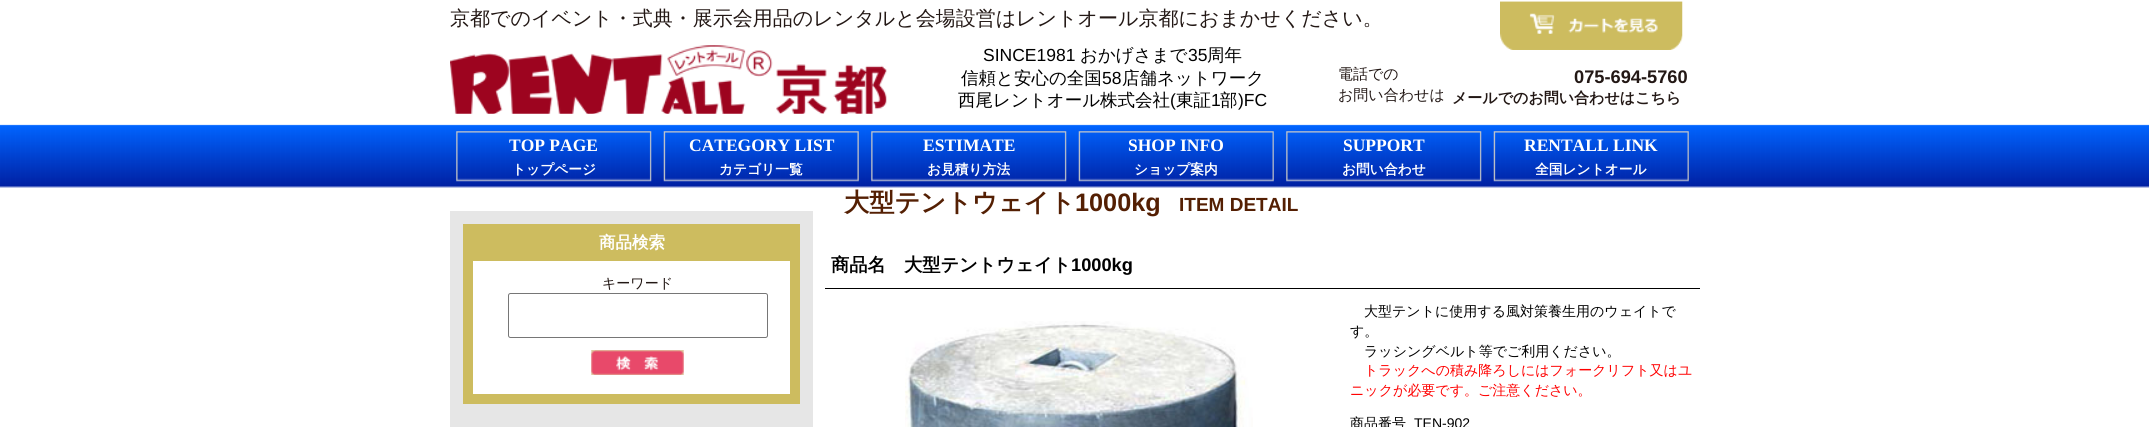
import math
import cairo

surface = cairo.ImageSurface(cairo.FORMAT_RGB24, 2149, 427)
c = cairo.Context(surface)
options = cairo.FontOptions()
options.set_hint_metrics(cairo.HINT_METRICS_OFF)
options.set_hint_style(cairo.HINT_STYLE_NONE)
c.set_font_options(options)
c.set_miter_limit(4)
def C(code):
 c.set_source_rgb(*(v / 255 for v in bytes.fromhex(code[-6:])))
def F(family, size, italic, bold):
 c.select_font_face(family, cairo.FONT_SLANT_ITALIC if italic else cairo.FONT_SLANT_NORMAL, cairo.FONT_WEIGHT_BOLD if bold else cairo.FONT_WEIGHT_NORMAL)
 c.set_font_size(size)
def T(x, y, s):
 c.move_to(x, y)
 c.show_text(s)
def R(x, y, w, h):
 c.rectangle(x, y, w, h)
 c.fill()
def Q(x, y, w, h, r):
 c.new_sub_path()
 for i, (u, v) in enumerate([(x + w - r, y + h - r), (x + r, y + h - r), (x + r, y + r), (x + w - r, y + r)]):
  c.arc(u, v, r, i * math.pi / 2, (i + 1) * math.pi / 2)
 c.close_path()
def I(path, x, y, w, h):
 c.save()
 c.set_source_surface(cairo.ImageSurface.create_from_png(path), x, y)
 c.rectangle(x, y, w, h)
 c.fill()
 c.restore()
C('ffffff')
c.paint()
I('1.png',0,124,2149,64)
F('WenQuanYi Zen Hei Medium',20,0,0)
C('231815')
T(450,25,'京都でのイベント・式典・展示会用品のレンタルと会場設営はレントオール京都におまかせください。')
I('2.png',1500,1,183,49)
I('3.png',450,45,437,69)
F('Liberation Sans',17.5,0,0)
C('000000')
T(983,61,'SINCE1981')
F('WenQuanYi Zen Hei Medium',17.5,0,0)
T(1080,61,'おかげさまで')
F('Liberation Sans',17.5,0,0)
T(1188,61,'35')
F('WenQuanYi Zen Hei Medium',17.5,0,0)
T(1207,61,'周年')
T(961,84,'信頼と安心の全国')
F('Liberation Sans',17.5,0,0)
T(1102,84,'58')
F('WenQuanYi Zen Hei Medium',17.5,0,0)
T(1122,84,'店舗ネットワーク')
T(958,106,'西尾レントオール株式会社')
F('Liberation Sans',17.5,0,0)
T(1170,106,'(')
F('WenQuanYi Zen Hei Medium',17.5,0,0)
T(1176,106,'東証')
F('Liberation Sans',17.5,0,0)
T(1211,106,'1')
F('WenQuanYi Zen Hei Medium',17.5,0,0)
T(1220,106,'部')
F('Liberation Sans',17.5,0,0)
T(1238,106,')FC')
F('WenQuanYi Zen Hei Medium',15,0,0)
C('231815')
T(1338,79,'電話での')
T(1338,100,'お問い合わせは')
F('Liberation Sans',18.25,0,1)
T(1574,83,'075-694-5760')
F('WenQuanYi Zen Hei',15,0,1)
T(1452,103,'メールでのお問い合わせはこちら')
I('4.png',456,131,196,51)
F('Liberation Serif',17.5,0,1)
C('ffffff')
T(509,151,'TOP PAGE')
F('WenQuanYi Zen Hei',13.75,0,1)
T(512,174,'トップページ')
I('5.png',663,131,196,51)
F('Liberation Serif',17.5,0,1)
T(689,151,'CATEGORY LIST')
F('WenQuanYi Zen Hei',13.75,0,1)
T(719,174,'カテゴリ一覧')
I('4.png',871,131,196,51)
F('Liberation Serif',17.5,0,1)
T(923,151,'ESTIMATE')
F('WenQuanYi Zen Hei',13.75,0,1)
T(927,174,'お見積り方法')
I('6.png',1078,131,196,51)
F('Liberation Serif',17.5,0,1)
T(1128,151,'SHOP INFO')
F('WenQuanYi Zen Hei',13.75,0,1)
T(1134,174,'ショップ案内')
I('4.png',1286,131,196,51)
F('Liberation Serif',17.5,0,1)
T(1343,151,'SUPPORT')
F('WenQuanYi Zen Hei',13.75,0,1)
T(1342,174,'お問い合わせ')
I('6.png',1493,131,196,51)
F('Liberation Serif',17.5,0,1)
T(1524,151,'RENTALL LINK')
F('WenQuanYi Zen Hei',13.75,0,1)
T(1535,174,'全国レントオール')
C('e6e6e6')
R(450,211,363,216)
C('ffffff')
R(473,261,317,133)
C('cdbc5f')
R(790,224,10,170)
R(473,394,327,10)
R(463,224,10,180)
R(473,224,317,37)
F('WenQuanYi Zen Hei',16.5,0,1)
C('ffffff')
T(599,248,'商品検索')
F('WenQuanYi Zen Hei Medium',14,0,0)
C('231815')
T(602,288,'キーワード')
Q(508.5,293.5,259,44,2)
C('767676')
c.set_line_width(1)
c.stroke()
I('7.png',591,350,93,25)
F('WenQuanYi Zen Hei',25.25,0,1)
C('541f03')
T(844,211,'大型テントウェイト')
F('Liberation Sans',25.25,0,1)
T(1075,211,'1000kg')
F('Liberation Sans',19,0,1)
T(1179,211,'ITEM DETAIL')
C('000000')
R(825,288,875,1)
F('WenQuanYi Zen Hei',18.25,0,1)
T(831,271,'商品名　大型テントウェイト')
F('Liberation Sans',18.25,0,1)
T(1071,271,'1000kg')
I('8.png',905,321,348,106)
F('WenQuanYi Zen Hei Medium',14,0,0)
T(1364,316,'大型テントに使用する風対策養生用のウェイトで')
T(1350,336,'す。')
T(1364,356,'ラッシングベルト等でご利用ください。')
C('ff0000')
T(1364,375,'トラックへの積み降ろしにはフォークリフト又はユ')
T(1350,395,'ニックが必要です。ご注意ください。')
C('000000')
T(1350,428,'商品番号')
F('Liberation Sans',14,0,0)
T(1414,428,'TEN-902')
surface.write_to_png('o.png')
